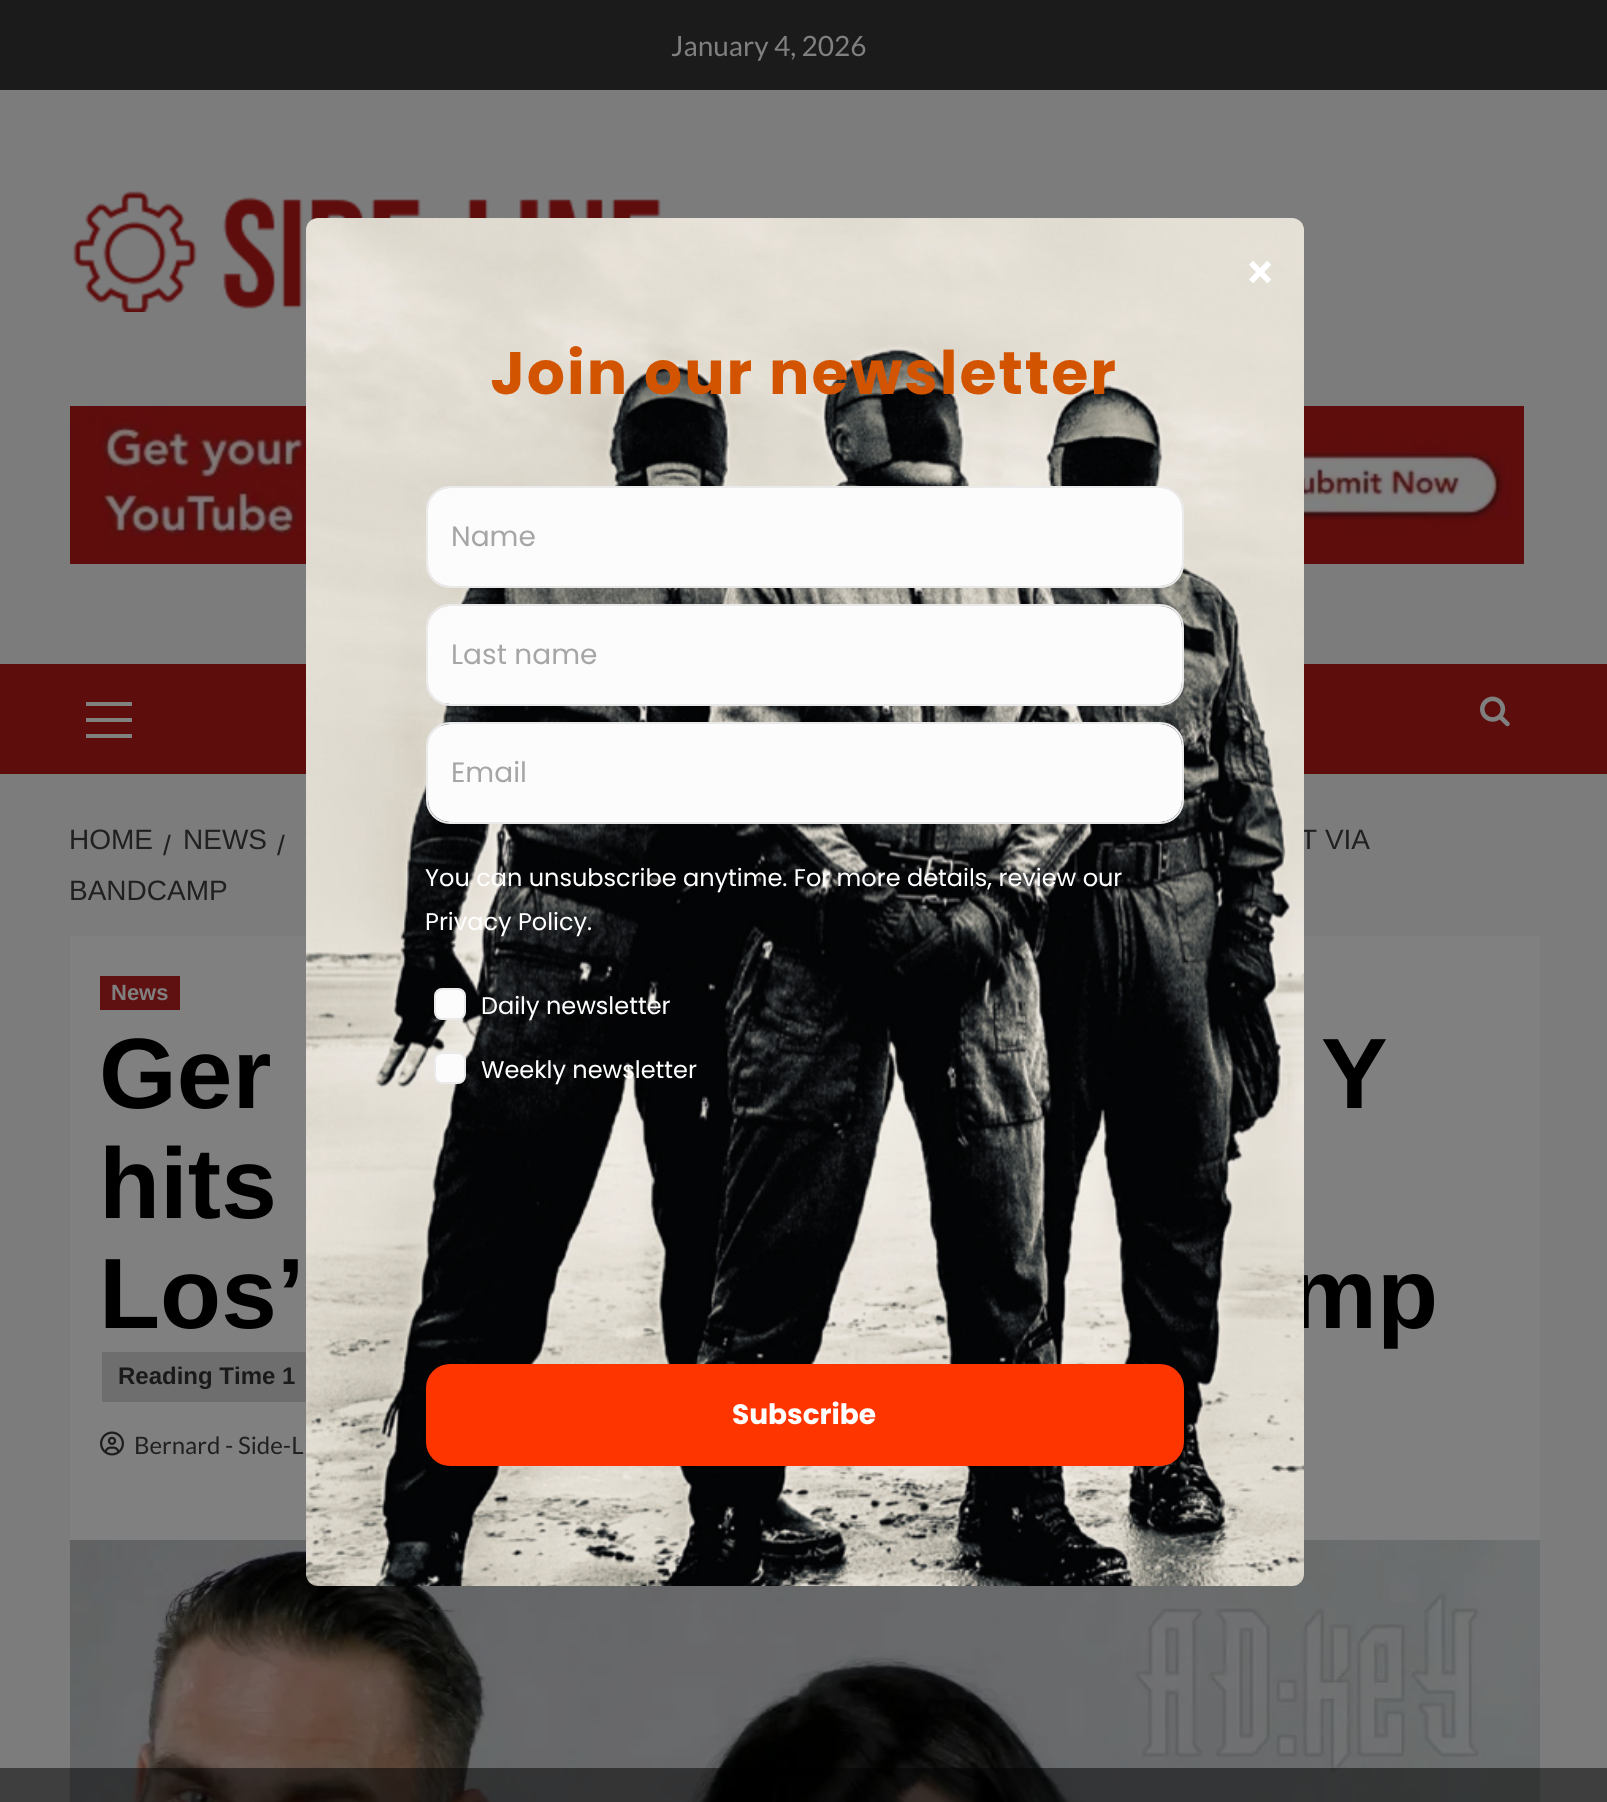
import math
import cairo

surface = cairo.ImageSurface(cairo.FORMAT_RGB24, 1607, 1802)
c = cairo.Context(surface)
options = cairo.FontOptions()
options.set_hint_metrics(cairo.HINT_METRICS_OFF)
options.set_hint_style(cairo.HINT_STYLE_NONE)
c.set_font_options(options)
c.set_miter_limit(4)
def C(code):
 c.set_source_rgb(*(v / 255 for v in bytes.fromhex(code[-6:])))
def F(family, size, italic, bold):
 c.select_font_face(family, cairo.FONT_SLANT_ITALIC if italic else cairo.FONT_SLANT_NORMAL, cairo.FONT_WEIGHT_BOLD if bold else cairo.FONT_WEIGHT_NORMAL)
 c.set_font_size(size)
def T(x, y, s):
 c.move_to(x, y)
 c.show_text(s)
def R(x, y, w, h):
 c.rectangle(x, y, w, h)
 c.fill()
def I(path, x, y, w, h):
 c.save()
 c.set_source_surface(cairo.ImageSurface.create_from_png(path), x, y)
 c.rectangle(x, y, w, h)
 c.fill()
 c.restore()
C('7c7c7c')
c.paint()
C('1b1b1b')
R(0,0,1607,90)
F('Lato',28,0,0)
C('808080')
T(671,56,'January 4, 2026')
I('1.png',73,191,588,121)
I('2.png',70,406,1454,158)
C('5e0d0d')
R(0,664,1607,110)
C('808080')
R(86,718,46,4)
R(86,702,46,4)
R(86,734,46,4)
I('3.png',1480,696,30,31)
F('Liberation Sans',28,0,0)
C('202020')
T(69,849,'HOME')
T(277,855,'/')
T(1300,849,'T VIA')
T(69,900,'BANDCAMP')
T(163,855,'/')
T(183,849,'NEWS')
C('808080')
R(70,936,1470,604)
C('5f1111')
R(100,976,80,34)
F('Liberation Sans',22,0,1)
C('808080')
T(111,1000,'News')
F('Liberation Sans',100,0,1)
C('000000')
T(99,1108,'Ger')
T(1321,1108,'Y')
T(99,1218,'hits')
T(99,1328,'Los’')
T(1288,1328,'mp')
C('6e6e6e')
R(102,1352,204,50)
F('Liberation Sans',24,0,1)
C('1a1a1a')
T(118,1384,'Reading Time 1')
I('4.png',100,1431,24,25)
F('Lato',24,0,0)
C('202020')
T(134,1454,'Bernard - Side-L')
I('5.png',70,1540,1470,262)
I('6.png',306,218,998,1368)
c.set_source_rgba(0,0,0,0.5)
R(0,1768,1607,34)
surface.write_to_png('o.png')
